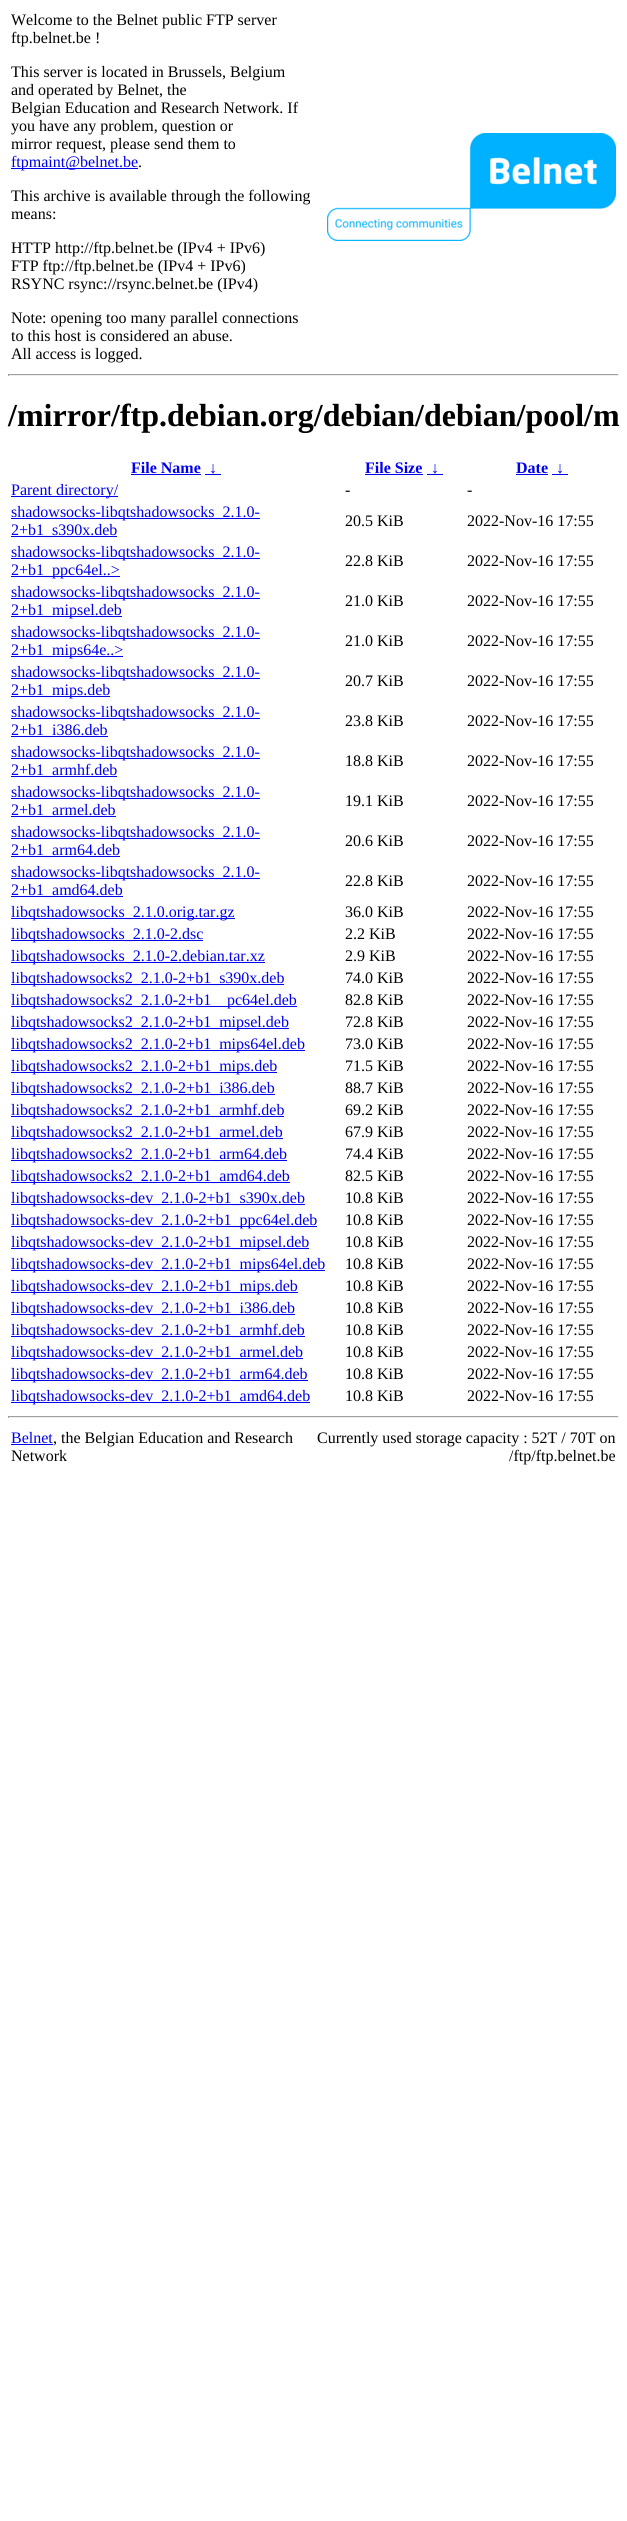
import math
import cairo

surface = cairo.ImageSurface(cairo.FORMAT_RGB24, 627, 2521)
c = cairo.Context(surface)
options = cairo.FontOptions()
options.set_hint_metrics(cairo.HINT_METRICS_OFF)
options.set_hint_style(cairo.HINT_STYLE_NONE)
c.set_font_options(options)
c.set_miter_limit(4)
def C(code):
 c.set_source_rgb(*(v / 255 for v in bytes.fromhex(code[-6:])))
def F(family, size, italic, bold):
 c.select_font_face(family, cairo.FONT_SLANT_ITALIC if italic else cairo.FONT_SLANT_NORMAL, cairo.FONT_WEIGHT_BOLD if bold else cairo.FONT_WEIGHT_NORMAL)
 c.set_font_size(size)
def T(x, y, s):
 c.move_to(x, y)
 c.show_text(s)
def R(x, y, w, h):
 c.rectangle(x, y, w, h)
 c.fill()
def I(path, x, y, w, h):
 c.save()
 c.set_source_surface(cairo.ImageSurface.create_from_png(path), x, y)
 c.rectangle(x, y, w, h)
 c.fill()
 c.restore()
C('ffffff')
c.paint()
F('Liberation Serif',16,0,0)
C('000000')
T(11,25,'Welcome to the Belnet public FTP server')
T(11,43,'ftp.belnet.be !')
T(11,77,'This server is located in Brussels, Belgium')
T(11,95,'and operated by Belnet, the')
T(11,113,'Belgian Education and Research Network. If')
T(11,131,'you have any problem, question or')
T(11,149,'mirror request, please send them to')
C('0000ee')
R(11,168,127,1)
T(11,167,'ftpmaint@belnet.be')
C('000000')
T(138,167,'.')
T(11,201,'This archive is available through the following')
T(11,219,'means:')
T(11,253,'HTTP http://ftp.belnet.be (IPv4 + IPv6)')
T(11,271,'FTP ftp://ftp.belnet.be (IPv4 + IPv6)')
T(11,289,'RSYNC rsync://rsync.belnet.be (IPv4)')
T(11,323,'Note: opening too many parallel connections')
T(11,341,'to this host is considered an abuse.')
T(11,359,'All access is logged.')
I('1.png',327,133,289,108)
C('9f9f9f')
R(8,374,611,1)
C('eeeeee')
R(618,374,1,2)
R(8,375,611,1)
C('9f9f9f')
R(8,374,1,2)
F('Liberation Serif',32,0,1)
C('000000')
T(8,426,'/mirror/ftp.debian.org/debian/debian/pool/m')
F('Liberation Serif',16,0,1)
C('0000ee')
T(131,473,'File Name')
R(131,474,70,1)
T(209,473,'↓')
R(205,474,16,1)
T(365,473,'File Size')
R(365,474,58,1)
T(431,473,'↓')
R(427,474,16,1)
T(516,473,'Date')
R(516,474,32,1)
T(556,473,'↓')
R(552,474,16,1)
R(11,496,107,1)
F('Liberation Serif',16,0,0)
T(11,495,'Parent directory/')
C('000000')
T(345,495,'-')
T(467,495,'-')
C('0000ee')
R(11,518,249,1)
T(11,517,'shadowsocks-libqtshadowsocks_2.1.0-')
R(11,536,106,1)
T(11,535,'2+b1_s390x.deb')
C('000000')
T(345,526,'20.5 KiB')
T(467,526,'2022-Nov-16 17:55')
C('0000ee')
R(11,558,249,1)
T(11,557,'shadowsocks-libqtshadowsocks_2.1.0-')
R(11,576,109,1)
T(11,575,'2+b1_ppc64el..>')
C('000000')
T(345,566,'22.8 KiB')
T(467,566,'2022-Nov-16 17:55')
C('0000ee')
R(11,598,249,1)
T(11,597,'shadowsocks-libqtshadowsocks_2.1.0-')
R(11,616,111,1)
T(11,615,'2+b1_mipsel.deb')
C('000000')
T(345,606,'21.0 KiB')
T(467,606,'2022-Nov-16 17:55')
C('0000ee')
R(11,638,249,1)
T(11,637,'shadowsocks-libqtshadowsocks_2.1.0-')
R(11,656,112,1)
T(11,655,'2+b1_mips64e..>')
C('000000')
T(345,646,'21.0 KiB')
T(467,646,'2022-Nov-16 17:55')
C('0000ee')
R(11,678,249,1)
T(11,677,'shadowsocks-libqtshadowsocks_2.1.0-')
R(11,696,99,1)
T(11,695,'2+b1_mips.deb')
C('000000')
T(345,686,'20.7 KiB')
T(467,686,'2022-Nov-16 17:55')
C('0000ee')
R(11,718,249,1)
T(11,717,'shadowsocks-libqtshadowsocks_2.1.0-')
R(11,736,97,1)
T(11,735,'2+b1_i386.deb')
C('000000')
T(345,726,'23.8 KiB')
T(467,726,'2022-Nov-16 17:55')
C('0000ee')
R(11,758,249,1)
T(11,757,'shadowsocks-libqtshadowsocks_2.1.0-')
R(11,776,106,1)
T(11,775,'2+b1_armhf.deb')
C('000000')
T(345,766,'18.8 KiB')
T(467,766,'2022-Nov-16 17:55')
C('0000ee')
R(11,798,249,1)
T(11,797,'shadowsocks-libqtshadowsocks_2.1.0-')
R(11,816,105,1)
T(11,815,'2+b1_armel.deb')
C('000000')
T(345,806,'19.1 KiB')
T(467,806,'2022-Nov-16 17:55')
C('0000ee')
R(11,838,249,1)
T(11,837,'shadowsocks-libqtshadowsocks_2.1.0-')
R(11,856,109,1)
T(11,855,'2+b1_arm64.deb')
C('000000')
T(345,846,'20.6 KiB')
T(467,846,'2022-Nov-16 17:55')
C('0000ee')
R(11,878,249,1)
T(11,877,'shadowsocks-libqtshadowsocks_2.1.0-')
R(11,896,112,1)
T(11,895,'2+b1_amd64.deb')
C('000000')
T(345,886,'22.8 KiB')
T(467,886,'2022-Nov-16 17:55')
C('0000ee')
R(11,918,224,1)
T(11,917,'libqtshadowsocks_2.1.0.orig.tar.gz')
C('000000')
T(345,917,'36.0 KiB')
T(467,917,'2022-Nov-16 17:55')
C('0000ee')
R(11,940,192,1)
T(11,939,'libqtshadowsocks_2.1.0-2.dsc')
C('000000')
T(345,939,'2.2 KiB')
T(467,939,'2022-Nov-16 17:55')
C('0000ee')
R(11,962,254,1)
T(11,961,'libqtshadowsocks_2.1.0-2.debian.tar.xz')
C('000000')
T(345,961,'2.9 KiB')
T(467,961,'2022-Nov-16 17:55')
C('0000ee')
R(11,984,273,1)
T(11,983,'libqtshadowsocks2_2.1.0-2+b1_s390x.deb')
C('000000')
T(345,983,'74.0 KiB')
T(467,983,'2022-Nov-16 17:55')
C('0000ee')
R(11,1006,286,1)
T(11,1005,'libqtshadowsocks2_2.1.0-2+b1')
T(227,1005,'pc64el.deb')
C('000000')
T(345,1005,'82.8 KiB')
T(467,1005,'2022-Nov-16 17:55')
C('0000ee')
R(11,1028,278,1)
T(11,1027,'libqtshadowsocks2_2.1.0-2+b1_mipsel.deb')
C('000000')
T(345,1027,'72.8 KiB')
T(467,1027,'2022-Nov-16 17:55')
C('0000ee')
R(11,1050,294,1)
T(11,1049,'libqtshadowsocks2_2.1.0-2+b1_mips64el.deb')
C('000000')
T(345,1049,'73.0 KiB')
T(467,1049,'2022-Nov-16 17:55')
C('0000ee')
R(11,1072,266,1)
T(11,1071,'libqtshadowsocks2_2.1.0-2+b1_mips.deb')
C('000000')
T(345,1071,'71.5 KiB')
T(467,1071,'2022-Nov-16 17:55')
C('0000ee')
R(11,1094,264,1)
T(11,1093,'libqtshadowsocks2_2.1.0-2+b1_i386.deb')
C('000000')
T(345,1093,'88.7 KiB')
T(467,1093,'2022-Nov-16 17:55')
C('0000ee')
R(11,1116,273,1)
T(11,1115,'libqtshadowsocks2_2.1.0-2+b1_armhf.deb')
C('000000')
T(345,1115,'69.2 KiB')
T(467,1115,'2022-Nov-16 17:55')
C('0000ee')
R(11,1138,272,1)
T(11,1137,'libqtshadowsocks2_2.1.0-2+b1_armel.deb')
C('000000')
T(345,1137,'67.9 KiB')
T(467,1137,'2022-Nov-16 17:55')
C('0000ee')
R(11,1160,276,1)
T(11,1159,'libqtshadowsocks2_2.1.0-2+b1_arm64.deb')
C('000000')
T(345,1159,'74.4 KiB')
T(467,1159,'2022-Nov-16 17:55')
C('0000ee')
R(11,1182,279,1)
T(11,1181,'libqtshadowsocks2_2.1.0-2+b1_amd64.deb')
C('000000')
T(345,1181,'82.5 KiB')
T(467,1181,'2022-Nov-16 17:55')
C('0000ee')
R(11,1204,294,1)
T(11,1203,'libqtshadowsocks-dev_2.1.0-2+b1_s390x.deb')
C('000000')
T(345,1203,'10.8 KiB')
T(467,1203,'2022-Nov-16 17:55')
C('0000ee')
R(11,1226,306,1)
T(11,1225,'libqtshadowsocks-dev_2.1.0-2+b1_ppc64el.deb')
C('000000')
T(345,1225,'10.8 KiB')
T(467,1225,'2022-Nov-16 17:55')
C('0000ee')
R(11,1248,298,1)
T(11,1247,'libqtshadowsocks-dev_2.1.0-2+b1_mipsel.deb')
C('000000')
T(345,1247,'10.8 KiB')
T(467,1247,'2022-Nov-16 17:55')
C('0000ee')
R(11,1270,314,1)
T(11,1269,'libqtshadowsocks-dev_2.1.0-2+b1_mips64el.deb')
C('000000')
T(345,1269,'10.8 KiB')
T(467,1269,'2022-Nov-16 17:55')
C('0000ee')
R(11,1292,287,1)
T(11,1291,'libqtshadowsocks-dev_2.1.0-2+b1_mips.deb')
C('000000')
T(345,1291,'10.8 KiB')
T(467,1291,'2022-Nov-16 17:55')
C('0000ee')
R(11,1314,284,1)
T(11,1313,'libqtshadowsocks-dev_2.1.0-2+b1_i386.deb')
C('000000')
T(345,1313,'10.8 KiB')
T(467,1313,'2022-Nov-16 17:55')
C('0000ee')
R(11,1336,294,1)
T(11,1335,'libqtshadowsocks-dev_2.1.0-2+b1_armhf.deb')
C('000000')
T(345,1335,'10.8 KiB')
T(467,1335,'2022-Nov-16 17:55')
C('0000ee')
R(11,1358,292,1)
T(11,1357,'libqtshadowsocks-dev_2.1.0-2+b1_armel.deb')
C('000000')
T(345,1357,'10.8 KiB')
T(467,1357,'2022-Nov-16 17:55')
C('0000ee')
R(11,1380,297,1)
T(11,1379,'libqtshadowsocks-dev_2.1.0-2+b1_arm64.deb')
C('000000')
T(345,1379,'10.8 KiB')
T(467,1379,'2022-Nov-16 17:55')
C('0000ee')
R(11,1402,299,1)
T(11,1401,'libqtshadowsocks-dev_2.1.0-2+b1_amd64.deb')
C('000000')
T(345,1401,'10.8 KiB')
T(467,1401,'2022-Nov-16 17:55')
C('9f9f9f')
R(8,1416,611,1)
C('eeeeee')
R(618,1416,1,2)
R(8,1417,611,1)
C('9f9f9f')
R(8,1416,1,2)
C('0000ee')
T(11,1443,'Belnet')
R(11,1444,42,1)
C('000000')
T(53,1443,', the Belgian Education and Research')
T(11,1461,'Network')
T(317,1443,'Currently used storage capacity : 52T / 70T on')
T(509,1461,'/ftp/ftp.belnet.be')
surface.write_to_png('o.png')
